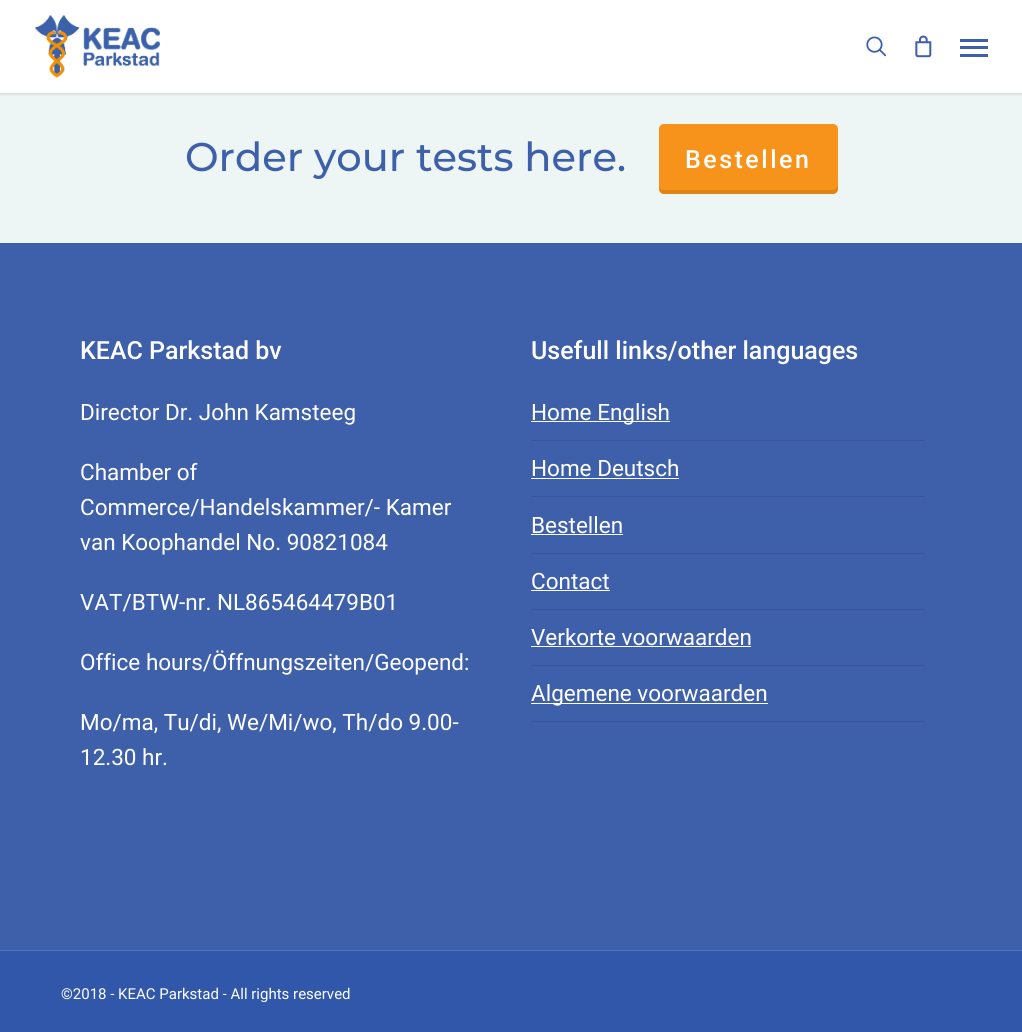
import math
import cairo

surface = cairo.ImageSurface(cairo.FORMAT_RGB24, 1022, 1032)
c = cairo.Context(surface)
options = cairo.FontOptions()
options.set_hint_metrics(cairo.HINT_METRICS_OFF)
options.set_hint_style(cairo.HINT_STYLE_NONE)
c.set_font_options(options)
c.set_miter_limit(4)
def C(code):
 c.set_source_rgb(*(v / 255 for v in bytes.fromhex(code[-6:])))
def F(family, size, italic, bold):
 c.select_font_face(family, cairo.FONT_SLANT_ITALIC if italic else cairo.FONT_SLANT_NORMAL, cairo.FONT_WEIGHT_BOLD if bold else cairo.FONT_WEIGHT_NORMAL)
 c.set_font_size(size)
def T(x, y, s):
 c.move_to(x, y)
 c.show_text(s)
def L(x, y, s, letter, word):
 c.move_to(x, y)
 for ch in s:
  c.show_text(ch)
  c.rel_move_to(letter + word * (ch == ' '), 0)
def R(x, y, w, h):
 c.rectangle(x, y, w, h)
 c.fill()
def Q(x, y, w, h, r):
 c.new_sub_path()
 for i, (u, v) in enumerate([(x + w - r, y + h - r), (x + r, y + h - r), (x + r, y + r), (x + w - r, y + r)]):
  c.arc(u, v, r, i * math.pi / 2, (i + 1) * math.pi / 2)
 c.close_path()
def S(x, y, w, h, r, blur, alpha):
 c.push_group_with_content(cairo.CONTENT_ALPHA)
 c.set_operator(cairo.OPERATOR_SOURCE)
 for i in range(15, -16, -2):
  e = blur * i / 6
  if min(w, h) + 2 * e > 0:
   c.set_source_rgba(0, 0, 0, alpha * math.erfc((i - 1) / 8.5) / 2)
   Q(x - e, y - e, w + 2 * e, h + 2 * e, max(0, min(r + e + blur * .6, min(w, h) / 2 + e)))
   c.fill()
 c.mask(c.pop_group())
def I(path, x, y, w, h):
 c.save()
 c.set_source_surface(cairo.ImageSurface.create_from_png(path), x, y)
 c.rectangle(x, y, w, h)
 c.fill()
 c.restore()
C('3e60aa')
c.paint()
C('eef5f5')
R(0,93,1022,150)
C('000000')
S(0,-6,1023,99,0,2,.22)
C('ffffff')
R(0,0,1022,93)
I('1.png',35,15,125,63)
I('2.png',866,36,21,21)
I('3.png',915,35,17,23)
C('3e60aa')
R(960,39,28,3)
R(960,54,28,3)
R(960,46,28,3)
F('Montserrat Medium',40,0,0)
T(185,171,'Order your tests here.')
C('f7931b')
Q(659,124,179,70,5)
c.fill()
c.set_source_rgba(0,0,0,0.1)
c.new_path()
c.move_to(659,185)
c.line_to(659,189)
c.curve_to(659,192,661,194,664,194)
c.line_to(833,194)
c.curve_to(836,194,838,192,838,189)
c.line_to(838,185)
c.curve_to(838,188,835,190,832,190)
c.line_to(664,190)
c.curve_to(661,190,659,188,659,185)
c.close_path()
c.fill()
F('Roboto Medium',25,0,0)
C('ffffff')
L(685,168,'Bestellen',2.5,0)
T(80,359,'KEAC Parkstad bv')
F('Roboto',22.5,0,0)
T(80,420,'Director Dr. John Kamsteeg')
T(80,480,'Chamber of')
T(80,515,'Commerce/Handelskammer/- Kamer')
T(80,550,'van Koophandel No. 90821084')
T(80,610,'VAT/BTW-nr. NL865464479B01')
T(80,670,'Office hours/Öffnungszeiten/Geopend:')
T(80,730,'Mo/ma, Tu/di, We/Mi/wo, Th/do 9.00-')
T(80,765,'12.30 hr.')
F('Roboto Medium',25,0,0)
T(531,359,'Usefull links/other languages')
C('385699')
R(531,440,394,1)
C('ffffff')
R(531,421,139,1)
F('Roboto',22.5,0,0)
T(531,420,'Home English')
C('385699')
R(531,496,394,1)
C('ffffff')
T(531,476,'Home Deutsch')
R(531,478,148,1)
C('385699')
R(531,553,394,1)
C('ffffff')
T(531,533,'Bestellen')
R(531,534,92,1)
C('385699')
R(531,609,394,1)
C('ffffff')
T(531,589,'Contact')
R(531,590,79,1)
C('385699')
R(531,665,394,1)
C('ffffff')
T(531,645,'Verkorte voorwaarden')
R(531,646,220,1)
C('385699')
R(531,721,394,1)
C('ffffff')
R(531,703,237,1)
T(531,701,'Algemene voorwaarden')
C('3157aa')
R(0,951,1022,81)
C('5675b9')
R(0,950,1022,1)
F('Roboto',15,0,0)
C('ffffff')
T(61,999,'©2018 - KEAC Parkstad - All rights reserved')
surface.write_to_png('o.png')
